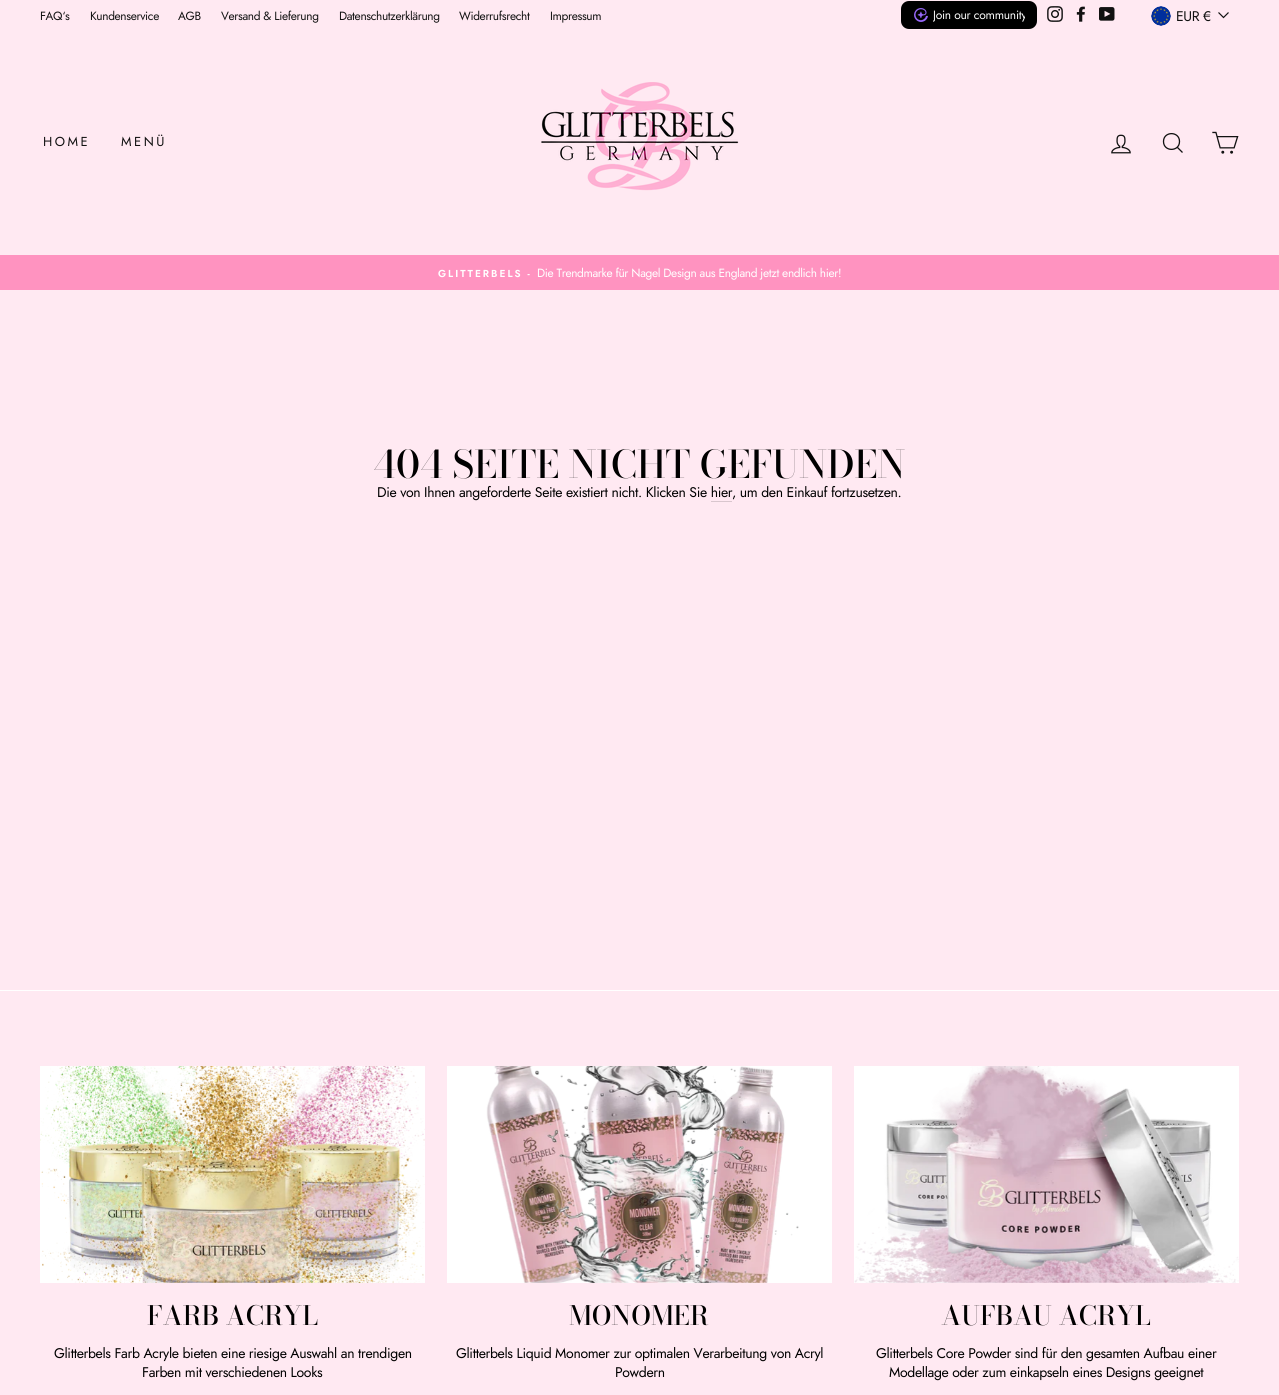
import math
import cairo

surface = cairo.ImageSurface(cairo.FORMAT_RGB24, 1279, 1395)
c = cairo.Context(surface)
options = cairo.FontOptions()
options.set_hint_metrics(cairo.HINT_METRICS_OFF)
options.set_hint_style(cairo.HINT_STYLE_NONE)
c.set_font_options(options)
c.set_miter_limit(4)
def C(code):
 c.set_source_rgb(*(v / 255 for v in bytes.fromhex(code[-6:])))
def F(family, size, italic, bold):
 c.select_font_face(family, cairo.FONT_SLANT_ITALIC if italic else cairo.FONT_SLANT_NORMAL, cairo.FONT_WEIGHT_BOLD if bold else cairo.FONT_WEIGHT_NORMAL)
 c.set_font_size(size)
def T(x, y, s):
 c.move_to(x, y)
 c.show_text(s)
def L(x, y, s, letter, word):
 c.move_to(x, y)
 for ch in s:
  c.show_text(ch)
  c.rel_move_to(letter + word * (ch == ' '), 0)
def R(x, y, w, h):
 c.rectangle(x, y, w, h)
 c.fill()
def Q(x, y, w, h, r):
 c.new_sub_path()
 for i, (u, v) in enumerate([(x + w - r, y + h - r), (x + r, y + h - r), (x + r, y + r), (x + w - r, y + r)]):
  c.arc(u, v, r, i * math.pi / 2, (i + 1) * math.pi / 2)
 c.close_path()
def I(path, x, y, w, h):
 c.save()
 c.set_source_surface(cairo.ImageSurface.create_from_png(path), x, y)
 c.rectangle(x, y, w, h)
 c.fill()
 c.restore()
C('ffe9f2')
c.paint()
F('Jost',11.9,0,0)
C('111111')
L(40,20,'FAQ‘s',-.35,0)
L(90,20,'Kundenservice',-.35,0)
L(178,20,'AGB',-.35,0)
L(221,20,'Versand & Lieferung',-.35,0)
L(339,20,'Datenschutzerklärung',-.35,0)
L(459,20,'Widerrufsrecht',-.35,0)
L(550,20,'Impressum',-.35,0)
C('000000')
Q(901,1,136,28,8)
c.fill()
I('1.png',914,8,14,14)
c.save()
c.rectangle(933,8,92,15)
c.clip()
F('Jost',12,0,0)
C('ffffff')
L(933,19,'Join our community',-.25,0)
c.restore()
I('2.png',1047,6,16,16)
I('3.png',1076,6,9,16)
I('4.png',1099,7,16,14)
I('5.png',1151,6,20,20)
F('Jost',14,0,0)
C('111111')
L(1176,21,'EUR €',-.35,0)
c.new_path()
c.move_to(1218.5,12.5)
c.line_to(1223.5,17.5)
c.line_to(1228.5,12.5)
c.set_line_width(1.2)
c.stroke()
F('Jost',13,0,0)
L(43,146,'HOME',2.5,0)
L(121,146,'MENÜ',2.5,0)
I('6.png',541,82,198,109)
I('7.png',1111,134,20,20)
c.new_path()
c.move_to(1179.5,141.5)
c.curve_to(1179.5,152,1163.5,152,1163.5,141.5)
c.curve_to(1163.5,131,1179.5,131,1179.5,141.5)
c.close_path()
c.move_to(1182.5,152.5)
c.line_to(1177.5,147.5)
c.set_line_width(1.3)
c.stroke()
I('8.png',1212,131,27,23)
C('ff93c0')
R(0,255,1279,35)
F('Jost SemiBold',10.1,0,0)
C('ffffff')
L(438,277,'GLITTERBELS -',2,0)
F('Jost',11.9,0,0)
L(537,277,'Die Trendmarke für Nagel Design aus England jetzt endlich hier!',-.35,0)
F('Bodoni Moda Medium',38,0,0)
C('000000')
T(373,478,'404 SEITE NICHT GEFUNDEN')
F('Jost',14,0,0)
L(377,497,'Die von Ihnen angeforderte Seite existiert nicht. Klicken Sie hier',-.35,0)
L(732,497,', um den Einkauf fortzusetzen.',-.35,0)
C('d9c6ce')
R(711,501,21,1)
C('ffffff')
R(0,990,1279,1)
R(40,1066,385,217)
I('9.png',40,1066,385,217)
F('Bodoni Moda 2 Medium',26.5,0,0)
C('000000')
T(147,1325,'FARB ACRYL')
F('Jost',14,0,0)
L(54,1358,'Glitterbels Farb Acryle bieten eine riesige Auswahl an trendigen',-.35,0)
L(142,1377,'Farben mit verschiedenen Looks',-.35,0)
C('ffffff')
R(447,1066,385,217)
I('10.png',486,1066,313,217)
F('Bodoni Moda 2 Medium',26.5,0,0)
C('000000')
T(569,1325,'MONOMER')
F('Jost',14,0,0)
L(456,1358,'Glitterbels Liquid Monomer zur optimalen Verarbeitung von Acryl',-.35,0)
L(615,1377,'Powdern',-.35,0)
C('ffffff')
R(854,1066,385,217)
I('11.png',854,1066,385,217)
F('Bodoni Moda 2 Medium',26.5,0,0)
C('000000')
T(941,1325,'AUFBAU ACRYL')
F('Jost',14,0,0)
L(876,1358,'Glitterbels Core Powder sind für den gesamten Aufbau einer',-.35,0)
L(889,1377,'Modellage oder zum einkapseln eines Designs geeignet',-.35,0)
surface.write_to_png('o.png')
